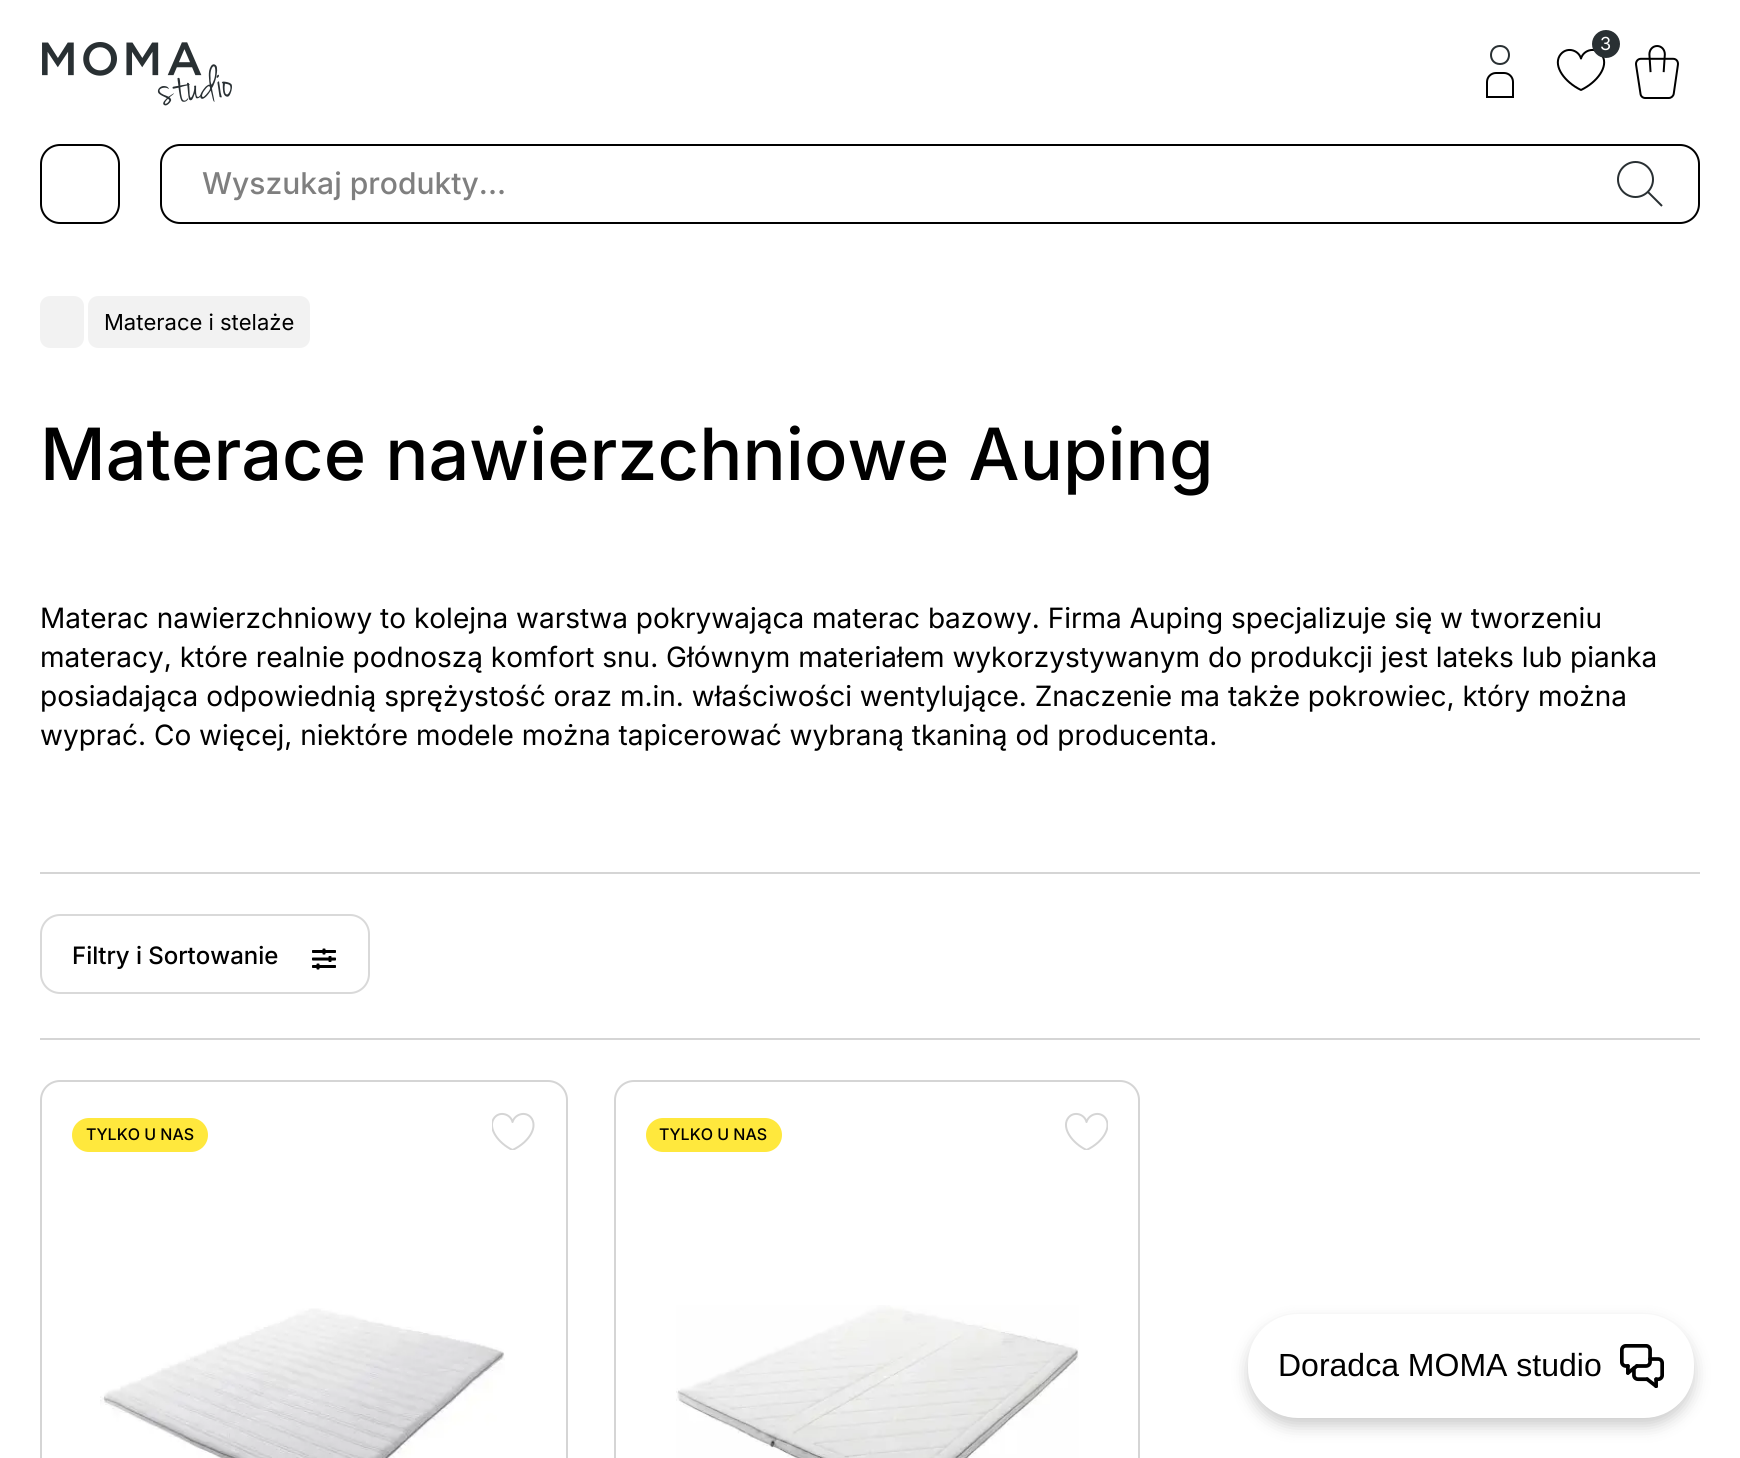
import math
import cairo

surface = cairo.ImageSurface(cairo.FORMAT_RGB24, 1740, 1458)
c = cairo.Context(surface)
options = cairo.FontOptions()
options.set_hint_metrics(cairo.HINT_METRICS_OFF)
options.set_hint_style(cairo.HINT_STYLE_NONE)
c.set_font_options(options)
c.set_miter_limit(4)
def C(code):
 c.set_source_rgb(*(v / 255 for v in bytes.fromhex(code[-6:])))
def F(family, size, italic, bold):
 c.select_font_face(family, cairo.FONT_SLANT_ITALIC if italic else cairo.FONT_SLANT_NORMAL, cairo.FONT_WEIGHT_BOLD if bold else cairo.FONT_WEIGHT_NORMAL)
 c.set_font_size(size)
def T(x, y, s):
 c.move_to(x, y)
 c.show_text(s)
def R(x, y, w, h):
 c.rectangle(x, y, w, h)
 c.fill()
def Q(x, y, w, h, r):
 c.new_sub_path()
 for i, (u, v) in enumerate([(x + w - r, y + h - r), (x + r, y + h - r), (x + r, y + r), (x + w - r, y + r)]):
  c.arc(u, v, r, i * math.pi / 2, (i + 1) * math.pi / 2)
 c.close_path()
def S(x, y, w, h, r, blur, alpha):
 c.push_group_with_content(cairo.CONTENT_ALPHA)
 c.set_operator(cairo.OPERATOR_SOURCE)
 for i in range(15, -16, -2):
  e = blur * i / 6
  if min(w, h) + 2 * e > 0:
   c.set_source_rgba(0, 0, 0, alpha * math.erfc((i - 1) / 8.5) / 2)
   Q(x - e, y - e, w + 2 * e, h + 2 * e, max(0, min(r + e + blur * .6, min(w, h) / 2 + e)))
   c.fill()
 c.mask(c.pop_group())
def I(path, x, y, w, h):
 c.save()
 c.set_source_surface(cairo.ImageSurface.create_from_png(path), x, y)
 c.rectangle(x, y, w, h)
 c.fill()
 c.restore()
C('ffffff')
c.paint()
Q(41,145,78,78,19)
C('000000')
c.stroke()
I('1.png',42,42,190,64)
c.new_path()
c.move_to(1581,90)
c.curve_to(1564.5,82,1553.5,66.5,1559.5,56)
c.curve_to(1565.5,46,1578.5,49.5,1581,58.5)
c.curve_to(1583.5,49.5,1596.5,46,1602.5,56)
c.curve_to(1608.5,66.5,1597.5,82,1581,90)
c.close_path()
c.set_line_join(cairo.LINE_JOIN_ROUND)
c.stroke()
C('293033')
c.arc(1606,44,14,0,2 * math.pi)
c.fill()
F('Inter',18,0,0)
C('ffffff')
T(1600,50,'3')
c.new_path()
c.move_to(1487,82)
c.curve_to(1487,77,1491,73,1496,73)
c.line_to(1504,73)
c.curve_to(1509,73,1513,77,1513,82)
c.line_to(1513,97)
c.line_to(1487,97)
c.close_path()
C('000000')
c.set_line_join(cairo.LINE_JOIN_MITER)
c.stroke()
c.new_path()
c.move_to(1500,64)
c.curve_to(1512,64,1512,46,1500,46)
c.curve_to(1488,46,1488,64,1500,64)
c.close_path()
C('293033')
c.set_line_join(cairo.LINE_JOIN_ROUND)
c.stroke()
I('2.png',1635,45,44,54)
Q(161,145,1538,78,19)
C('000000')
c.set_line_join(cairo.LINE_JOIN_MITER)
c.stroke()
F('Inter Medium',30,0,0)
C('7f7f7f')
T(202,194,'Wyszukaj produkty...')
c.new_path()
c.move_to(1635.5,197)
c.curve_to(1645,197,1653,189,1653,179.5)
c.curve_to(1653,170,1645,162,1635.5,162)
c.curve_to(1626,162,1618,170,1618,179.5)
c.curve_to(1618,189,1626,197,1635.5,197)
c.close_path()
c.move_to(1647.5,191.5)
c.line_to(1662,206)
C('293033')
c.stroke()
C('f2f2f2')
Q(88,296,222,52,10)
c.fill()
Q(40,296,44,52,10)
c.fill()
F('Inter',22,0,0)
C('000000')
T(104,330,'Materace i stelaże')
F('Inter Medium',72,0,0)
T(40,480,'Materace nawierzchniowe Auping')
F('Inter',28,0,0)
T(40,628,'Materac nawierzchniowy to kolejna warstwa pokrywająca materac bazowy. Firma Auping specjalizuje się w tworzeniu')
T(40,667,'materacy, które realnie podnoszą komfort snu. Głównym materiałem wykorzystywanym do produkcji jest lateks lub pianka')
T(40,706,'posiadająca odpowiednią sprężystość oraz m.in. właściwości wentylujące. Znaczenie ma także pokrowiec, który można')
T(40,745,'wyprać. Co więcej, niektóre modele można tapicerować wybraną tkaniną od producenta.')
C('d5d5d5')
R(40,872,1660,2)
R(40,1038,1660,2)
Q(41,915,328,78,19)
C('d9d9d9')
c.stroke()
F('Inter Medium',24,0,0)
C('000000')
T(72,964,'Filtry i Sortowanie')
I('3.png',312,948,24,22)
Q(41,1081,526,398,19)
C('d5d5d5')
c.stroke()
C('ffe83d')
Q(72,1118,136,34,17)
c.fill()
F('Inter Medium',16,0,0)
C('000000')
T(86,1140,'TYLKO U NAS')
c.save()
c.rectangle(492,1112,44,38)
c.clip()
c.new_path()
c.move_to(512.5,1150)
c.curve_to(498,1143,488,1128.5,493.5,1119)
c.curve_to(498.5,1110.5,510.5,1113.5,512.5,1122)
c.curve_to(515,1113.5,527,1110.5,532,1119)
c.curve_to(537.5,1129,527.5,1143,512.5,1150)
c.close_path()
C('d5d5d5')
c.set_line_join(cairo.LINE_JOIN_ROUND)
c.stroke()
c.restore()
I('4.png',100,1308,405,150)
Q(615,1081,524,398,19)
C('d5d5d5')
c.stroke()
C('ffe83d')
Q(646,1118,136,34,17)
c.fill()
C('000000')
T(659,1140,'TYLKO U NAS')
c.save()
c.rectangle(1064,1112,44,38)
c.clip()
c.new_path()
c.move_to(1086.5,1150)
c.curve_to(1072,1143,1062,1128.5,1067.5,1119)
c.curve_to(1072.5,1110.5,1084.5,1113.5,1086.5,1122)
c.curve_to(1089,1113.5,1101,1110.5,1106,1119)
c.curve_to(1111.5,1129,1101.5,1143,1086.5,1150)
c.close_path()
C('d5d5d5')
c.set_line_join(cairo.LINE_JOIN_ROUND)
c.stroke()
c.restore()
I('5.png',676,1305,403,153)
C('000000')
S(1248,1322,446,104,50,8,.2)
C('ffffff')
Q(1248,1314,446,104,50)
c.fill()
F('Liberation Sans',32,0,0)
C('000000')
T(1278,1376,'Doradca MOMA studio')
I('6.png',1620,1344,44,44)
surface.write_to_png('o.png')
